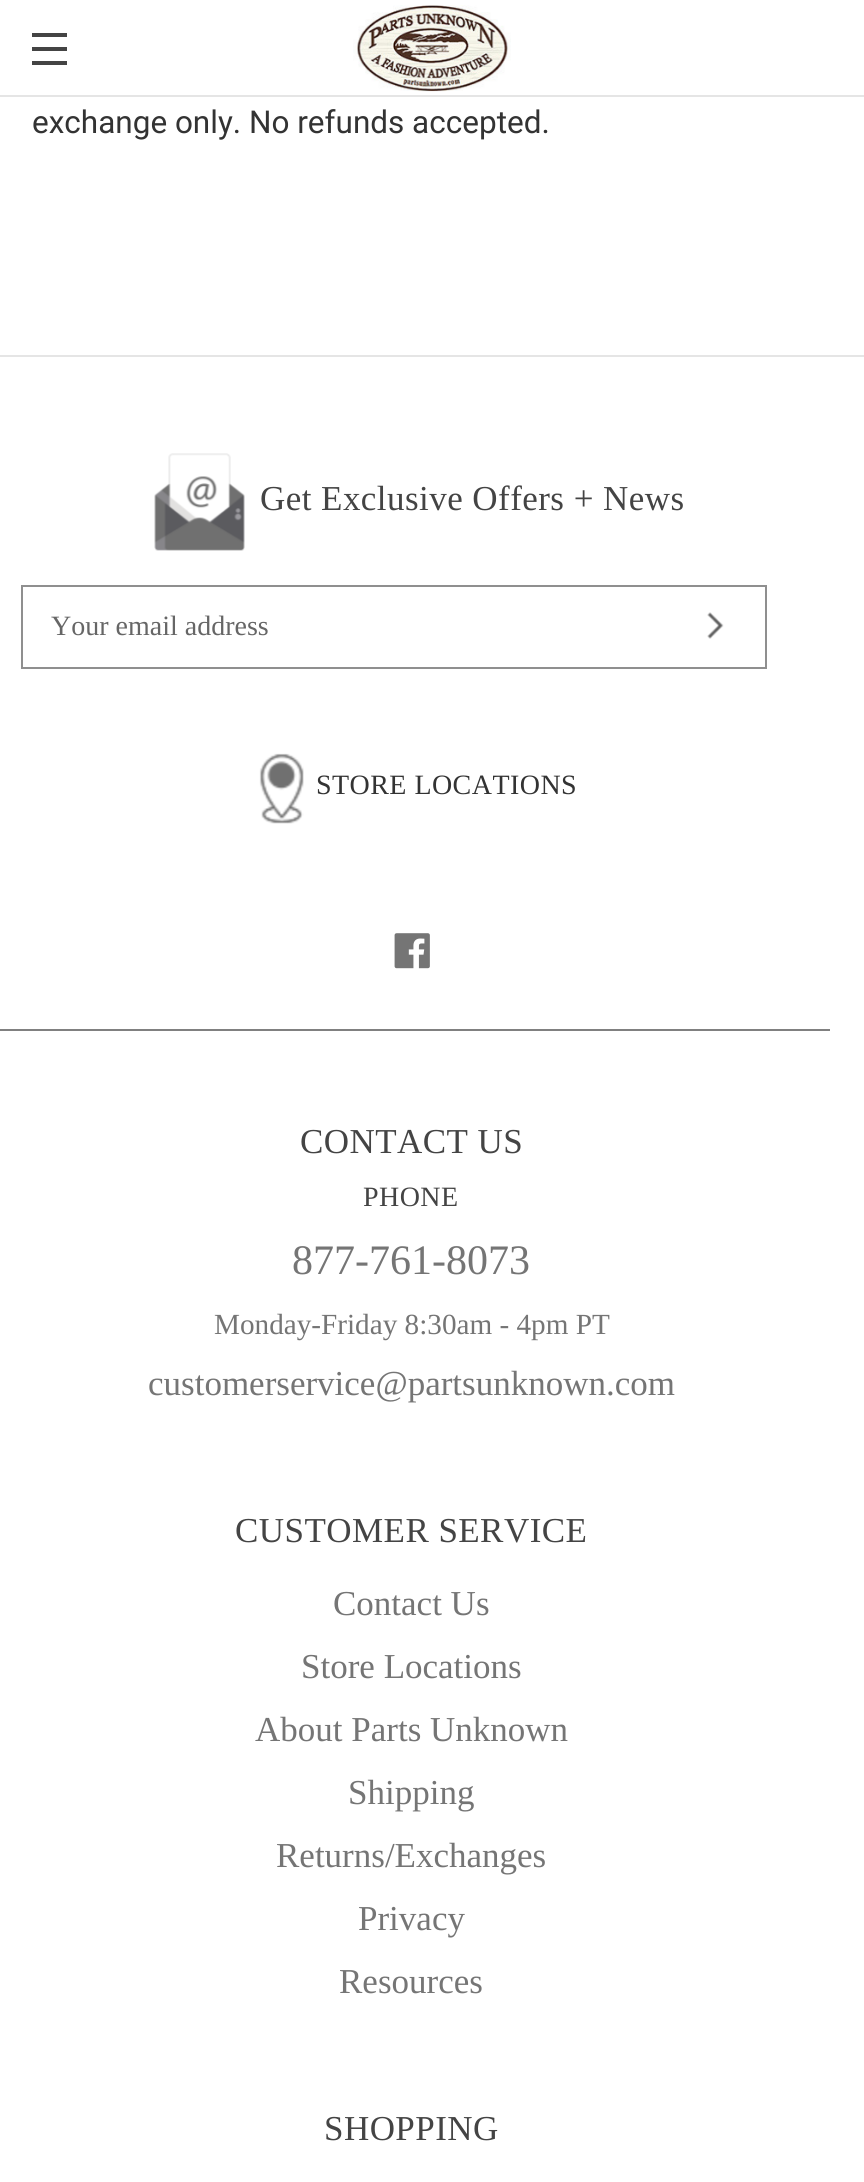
import math
import cairo

surface = cairo.ImageSurface(cairo.FORMAT_RGB24, 864, 2182)
c = cairo.Context(surface)
options = cairo.FontOptions()
options.set_hint_metrics(cairo.HINT_METRICS_OFF)
options.set_hint_style(cairo.HINT_STYLE_NONE)
c.set_font_options(options)
c.set_miter_limit(4)
def C(code):
 c.set_source_rgb(*(v / 255 for v in bytes.fromhex(code[-6:])))
def F(family, size, italic, bold):
 c.select_font_face(family, cairo.FONT_SLANT_ITALIC if italic else cairo.FONT_SLANT_NORMAL, cairo.FONT_WEIGHT_BOLD if bold else cairo.FONT_WEIGHT_NORMAL)
 c.set_font_size(size)
def T(x, y, s):
 c.move_to(x, y)
 c.show_text(s)
def L(x, y, s, letter, word):
 c.move_to(x, y)
 for ch in s:
  c.show_text(ch)
  c.rel_move_to(letter + word * (ch == ' '), 0)
def R(x, y, w, h):
 c.rectangle(x, y, w, h)
 c.fill()
def I(path, x, y, w, h):
 c.save()
 c.set_source_surface(cairo.ImageSurface.create_from_png(path), x, y)
 c.rectangle(x, y, w, h)
 c.fill()
 c.restore()
C('ffffff')
c.paint()
C('e5e5e5')
R(0,95,864,2)
C('444444')
R(32,47,35,4)
R(32,33,35,4)
R(32,61,35,4)
I('1.png',353,5,158,87)
F('Roboto',31.5,0,0)
C('333333')
T(32,133,'exchange only. No refunds accepted.')
C('e5e5e5')
R(0,355,864,2)
I('2.png',154,453,91,98)
F('Liberation Serif',35,0,0)
C('444444')
L(260,510,'Get Exclusive Offers + News',.45,0)
c.rectangle(22,586,744,82)
C('8f8f8f')
c.stroke()
F('Liberation Serif',28,0,0)
C('666666')
T(51,635,'Your email address')
I('3.png',707,612,17,27)
I('4.png',259,753,45,71)
C('333333')
L(316,794,'STORE LOCATIONS',.45,0)
C('808080')
R(0,1029,830,2)
I('5.png',394,933,36,36)
F('Liberation Serif',35,0,0)
C('444444')
L(300,1153,'CONTACT US',.45,0)
F('Liberation Serif',28,0,0)
L(363,1206,'PHONE',.45,0)
F('Liberation Serif',42,0,0)
C('757575')
T(292,1274,'877-761-8073')
F('Liberation Serif',29.2,0,0)
T(214,1334,'Monday-Friday 8:30am - 4pm PT')
F('Liberation Serif',35,0,0)
T(148,1395,'customerservice@partsunknown.com')
C('444444')
L(235,1542,'CUSTOMER SERVICE',.45,0)
C('757575')
T(333,1615,'Contact Us')
T(301,1678,'Store Locations')
T(255,1741,'About Parts Unknown')
T(348,1804,'Shipping')
T(276,1867,'Returns/Exchanges')
T(358,1930,'Privacy')
T(339,1993,'Resources')
C('444444')
L(324,2140,'SHOPPING',.45,0)
surface.write_to_png('o.png')
